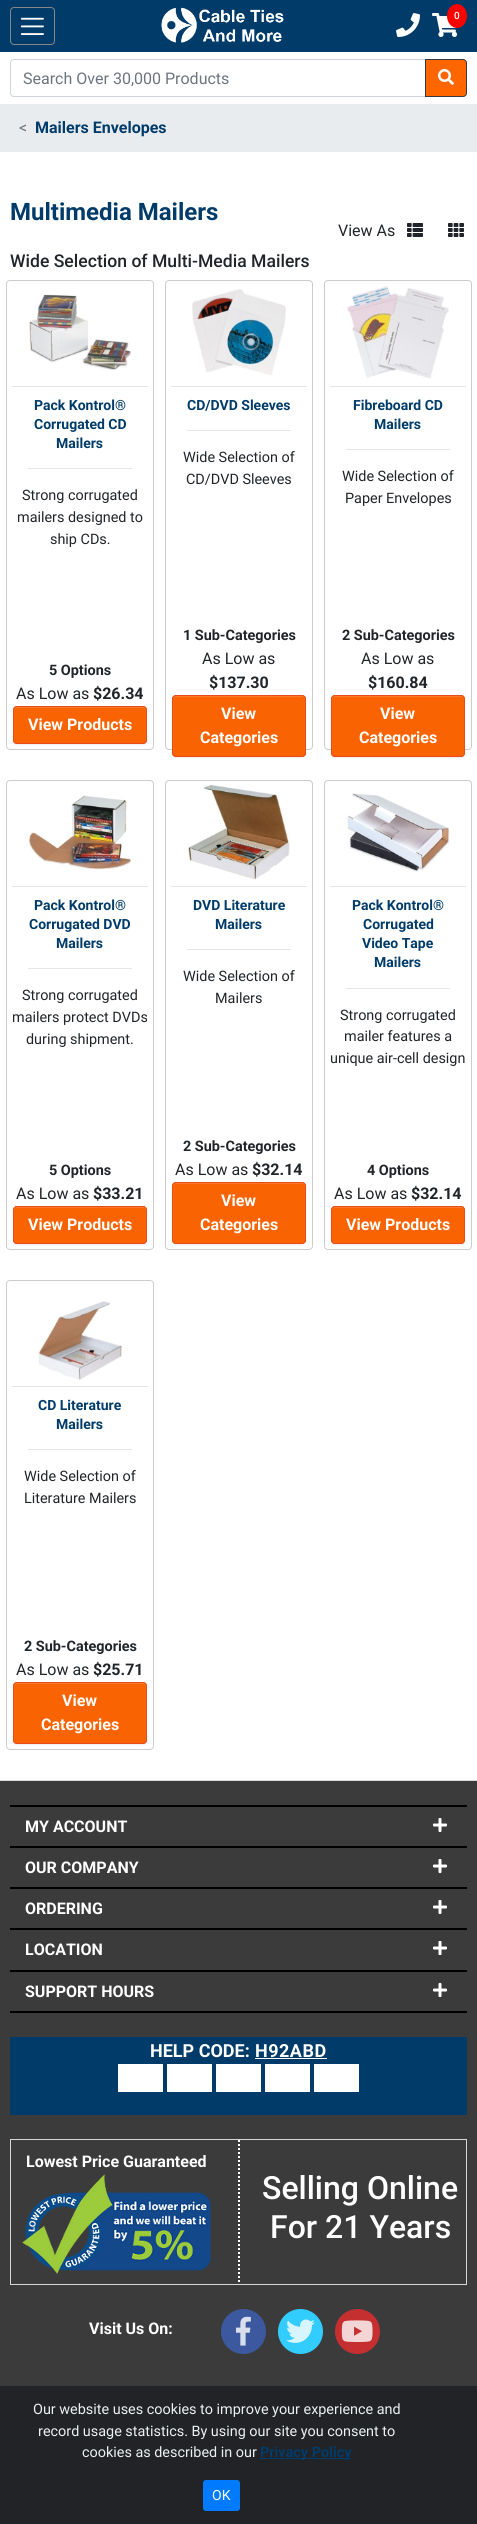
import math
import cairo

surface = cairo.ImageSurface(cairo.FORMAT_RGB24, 477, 2524)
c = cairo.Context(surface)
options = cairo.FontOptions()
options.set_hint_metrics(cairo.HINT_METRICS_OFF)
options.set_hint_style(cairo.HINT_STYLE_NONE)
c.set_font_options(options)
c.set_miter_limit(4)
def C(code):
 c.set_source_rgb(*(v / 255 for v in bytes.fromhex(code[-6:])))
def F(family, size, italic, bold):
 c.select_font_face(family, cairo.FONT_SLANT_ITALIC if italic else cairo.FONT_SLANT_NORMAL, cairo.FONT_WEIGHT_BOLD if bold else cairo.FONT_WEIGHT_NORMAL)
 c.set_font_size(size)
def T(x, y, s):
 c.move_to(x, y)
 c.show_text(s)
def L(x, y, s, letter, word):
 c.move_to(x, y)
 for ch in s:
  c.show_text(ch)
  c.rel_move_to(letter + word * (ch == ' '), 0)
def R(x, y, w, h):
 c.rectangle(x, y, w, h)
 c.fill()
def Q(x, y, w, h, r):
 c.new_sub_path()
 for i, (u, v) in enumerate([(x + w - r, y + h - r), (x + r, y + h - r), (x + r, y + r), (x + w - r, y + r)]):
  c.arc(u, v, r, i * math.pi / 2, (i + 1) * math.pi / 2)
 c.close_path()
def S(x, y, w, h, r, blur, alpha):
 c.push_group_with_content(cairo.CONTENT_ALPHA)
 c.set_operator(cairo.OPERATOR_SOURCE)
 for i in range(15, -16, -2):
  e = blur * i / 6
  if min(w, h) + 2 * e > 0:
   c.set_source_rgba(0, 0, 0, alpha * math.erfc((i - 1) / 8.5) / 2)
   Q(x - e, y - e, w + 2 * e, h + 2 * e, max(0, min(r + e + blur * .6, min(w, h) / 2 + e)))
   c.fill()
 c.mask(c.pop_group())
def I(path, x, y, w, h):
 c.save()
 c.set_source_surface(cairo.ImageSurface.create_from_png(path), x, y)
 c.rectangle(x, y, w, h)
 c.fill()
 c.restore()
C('ffffff')
c.paint()
C('003b69')
R(0,0,477,52)
Q(10.5,7.5,44,37,3.5)
C('878787')
c.set_line_width(1)
c.stroke()
I('1.png',20,17,24,18)
I('2.png',161,7,123,36)
I('3.png',396,13,24,24)
I('4.png',432,13,26,24)
C('ff0000')
c.new_path()
c.move_to(457,4)
c.curve_to(462.5,4,467,9.5,467,16)
c.curve_to(467,22.5,462.5,28,457,28)
c.curve_to(451.5,28,447,22.5,447,16)
c.curve_to(447,9.5,451.5,4,457,4)
c.close_path()
c.fill()
F('Roboto Medium',10,0,0)
C('ffffff')
T(454,19,'0')
c.new_path()
c.move_to(14,59.5)
c.line_to(425.5,59.5)
c.line_to(425.5,96.5)
c.line_to(14,96.5)
c.curve_to(12,96.5,10.5,95,10.5,93)
c.line_to(10.5,63)
c.curve_to(10.5,61,12,59.5,14,59.5)
c.close_path()
C('ced4da')
c.stroke()
F('Roboto',16,0,0)
C('6c757d')
T(23,84,'Search Over 30,000 Products')
C('ff6600')
c.new_path()
c.move_to(425.5,59.5)
c.line_to(463,59.5)
c.curve_to(465,59.5,466.5,61,466.5,63)
c.line_to(466.5,93)
c.curve_to(466.5,95,465,96.5,463,96.5)
c.line_to(425.5,96.5)
c.close_path()
c.fill_preserve()
C('343a40')
c.stroke()
I('5.png',438,69,16,16)
C('e9ecef')
R(0,104,477,48)
C('6c757d')
T(19,133,'<')
F('Roboto',16,0,1)
C('003b69')
T(35,133,'Mailers Envelopes')
F('Roboto',24,0,1)
T(10,220,'Multimedia Mailers')
F('Roboto Medium',17.6,0,0)
C('212529')
T(10,267,'Wide Selection of Multi-Media Mailers')
F('Roboto',16,0,0)
T(338,236,'View As')
I('6.png',407,223,16,14)
I('7.png',448,223,16,14)
Q(6.5,280.5,147,469,3.5)
C('cccccc')
c.stroke()
I('8.png',29,294,102,76)
C('e6e6e6')
R(12,386,136,1)
F('Roboto',14,0,1)
C('003b69')
T(34,410,'Pack Kontrol®')
T(34,429,'Corrugated CD')
T(56,448,'Mailers')
C('e6e6e6')
R(28,468,104,1)
F('Roboto',14.4,0,0)
C('212529')
T(22,500,'Strong corrugated')
T(17,522,'mailers designed to')
T(50,544,'ship CDs.')
F('Roboto',14.4,0,1)
T(49,675,'5 Options')
F('Roboto',16,0,0)
T(16,699,'As Low as')
F('Roboto',16,0,1)
T(93,699,'$26.34')
C('000000')
S(13,707,134,38,4,.5,.07)
C('f96302')
Q(13,706,134,38,4)
c.fill()
C('fa7a28')
c.new_path()
c.move_to(17,708)
c.line_to(143,708)
c.curve_to(145,708,146,709,146,711)
c.curve_to(146,709,146,707,144,707)
c.line_to(16,707)
c.curve_to(14,707,14,709,14,711)
c.curve_to(14,709,15,708,17,708)
c.close_path()
c.fill()
Q(13.5,706.5,133,37,3.5)
C('e84d1c')
c.stroke()
C('ffffff')
T(28,730,'View Products')
Q(165.5,280.5,147,469,3.5)
C('cccccc')
c.stroke()
I('9.png',192,289,94,87)
C('e6e6e6')
R(171,386,136,1)
F('Roboto',14,0,1)
C('003b69')
T(187,410,'CD/DVD Sleeves')
C('e6e6e6')
R(187,430,104,1)
F('Roboto',14.4,0,0)
C('212529')
T(183,462,'Wide Selection of')
T(186,484,'CD/DVD Sleeves')
F('Roboto',14.4,0,1)
T(183,640,'1 Sub-Categories')
F('Roboto',16,0,0)
T(202,664,'As Low as')
F('Roboto',16,0,1)
T(209,688,'$137.30')
C('000000')
S(172,696,134,62,4,.5,.07)
C('f96302')
Q(172,695,134,62,4)
c.fill()
C('fa7a28')
c.new_path()
c.move_to(176,697)
c.line_to(302,697)
c.curve_to(304,697,305,698,305,700)
c.curve_to(305,698,305,696,303,696)
c.line_to(175,696)
c.curve_to(173,696,173,698,173,700)
c.curve_to(173,698,174,697,176,697)
c.close_path()
c.fill()
Q(172.5,695.5,133,61,3.5)
C('e84d1c')
c.stroke()
C('ffffff')
T(221,719,'View')
T(200,743,'Categories')
Q(324.5,280.5,147,469,3.5)
C('cccccc')
c.stroke()
I('10.png',347,286,102,93)
C('e6e6e6')
R(330,386,136,1)
F('Roboto',14,0,1)
C('003b69')
T(353,410,'Fibreboard CD')
T(374,429,'Mailers')
C('e6e6e6')
R(346,449,104,1)
F('Roboto',14.4,0,0)
C('212529')
T(342,481,'Wide Selection of')
T(345,503,'Paper Envelopes')
F('Roboto',14.4,0,1)
T(342,640,'2 Sub-Categories')
F('Roboto',16,0,0)
T(361,664,'As Low as')
F('Roboto',16,0,1)
T(368,688,'$160.84')
C('000000')
S(331,696,134,62,4,.5,.07)
C('f96302')
Q(331,695,134,62,4)
c.fill()
C('fa7a28')
c.new_path()
c.move_to(335,697)
c.line_to(461,697)
c.curve_to(463,697,464,698,464,700)
c.curve_to(464,698,464,696,462,696)
c.line_to(334,696)
c.curve_to(332,696,332,698,332,700)
c.curve_to(332,698,333,697,335,697)
c.close_path()
c.fill()
Q(331.5,695.5,133,61,3.5)
C('e84d1c')
c.stroke()
C('ffffff')
T(380,719,'View')
T(359,743,'Categories')
Q(6.5,780.5,147,469,3.5)
C('cccccc')
c.stroke()
I('11.png',28,795,104,75)
C('e6e6e6')
R(12,886,136,1)
F('Roboto',14,0,1)
C('003b69')
T(34,910,'Pack Kontrol®')
T(29,929,'Corrugated DVD')
T(56,948,'Mailers')
C('e6e6e6')
R(28,968,104,1)
F('Roboto',14.4,0,0)
C('212529')
T(22,1000,'Strong corrugated')
T(12,1022,'mailers protect DVDs')
T(26,1044,'during shipment.')
F('Roboto',14.4,0,1)
T(49,1175,'5 Options')
F('Roboto',16,0,0)
T(16,1199,'As Low as')
F('Roboto',16,0,1)
T(93,1199,'$33.21')
C('000000')
S(13,1207,134,38,4,.5,.07)
C('f96302')
Q(13,1206,134,38,4)
c.fill()
C('fa7a28')
c.new_path()
c.move_to(17,1208)
c.line_to(143,1208)
c.curve_to(145,1208,146,1209,146,1211)
c.curve_to(146,1209,146,1207,144,1207)
c.line_to(16,1207)
c.curve_to(14,1207,14,1209,14,1211)
c.curve_to(14,1209,15,1208,17,1208)
c.close_path()
c.fill()
Q(13.5,1206.5,133,37,3.5)
C('e84d1c')
c.stroke()
C('ffffff')
T(28,1230,'View Products')
Q(165.5,780.5,147,469,3.5)
C('cccccc')
c.stroke()
I('12.png',188,784,102,96)
C('e6e6e6')
R(171,886,136,1)
F('Roboto',14,0,1)
C('003b69')
T(193,910,'DVD Literature')
T(215,929,'Mailers')
C('e6e6e6')
R(187,949,104,1)
F('Roboto',14.4,0,0)
C('212529')
T(183,981,'Wide Selection of')
T(215,1003,'Mailers')
F('Roboto',14.4,0,1)
T(183,1151,'2 Sub-Categories')
F('Roboto',16,0,0)
T(175,1175,'As Low as')
F('Roboto',16,0,1)
T(252,1175,'$32.14')
C('000000')
S(172,1183,134,62,4,.5,.07)
C('f96302')
Q(172,1182,134,62,4)
c.fill()
C('fa7a28')
c.new_path()
c.move_to(176,1184)
c.line_to(302,1184)
c.curve_to(304,1184,305,1185,305,1187)
c.curve_to(305,1185,305,1183,303,1183)
c.line_to(175,1183)
c.curve_to(173,1183,173,1185,173,1187)
c.curve_to(173,1185,174,1184,176,1184)
c.close_path()
c.fill()
Q(172.5,1182.5,133,61,3.5)
C('e84d1c')
c.stroke()
C('ffffff')
T(221,1206,'View')
T(200,1230,'Categories')
Q(324.5,780.5,147,469,3.5)
C('cccccc')
c.stroke()
I('13.png',347,793,103,79)
C('e6e6e6')
R(330,886,136,1)
F('Roboto',14,0,1)
C('003b69')
T(352,910,'Pack Kontrol®')
T(363,929,'Corrugated')
T(362,948,'Video Tape')
T(374,967,'Mailers')
C('e6e6e6')
R(346,988,104,1)
F('Roboto',14.4,0,0)
C('212529')
T(340,1020,'Strong corrugated')
T(344,1041,'mailer features a')
T(330,1063,'unique air-cell design')
F('Roboto',14.4,0,1)
T(367,1175,'4 Options')
F('Roboto',16,0,0)
T(334,1199,'As Low as')
F('Roboto',16,0,1)
T(411,1199,'$32.14')
C('000000')
S(331,1207,134,38,4,.5,.07)
C('f96302')
Q(331,1206,134,38,4)
c.fill()
C('fa7a28')
c.new_path()
c.move_to(335,1208)
c.line_to(461,1208)
c.curve_to(463,1208,464,1209,464,1211)
c.curve_to(464,1209,464,1207,462,1207)
c.line_to(334,1207)
c.curve_to(332,1207,332,1209,332,1211)
c.curve_to(332,1209,333,1208,335,1208)
c.close_path()
c.fill()
Q(331.5,1206.5,133,37,3.5)
C('e84d1c')
c.stroke()
C('ffffff')
T(346,1230,'View Products')
Q(6.5,1280.5,147,469,3.5)
C('cccccc')
c.stroke()
I('14.png',38,1301,84,79)
C('e6e6e6')
R(12,1386,136,1)
F('Roboto',14,0,1)
C('003b69')
T(38,1410,'CD Literature')
T(56,1429,'Mailers')
C('e6e6e6')
R(28,1449,104,1)
F('Roboto',14.4,0,0)
C('212529')
T(24,1481,'Wide Selection of')
T(24,1503,'Literature Mailers')
F('Roboto',14.4,0,1)
T(24,1651,'2 Sub-Categories')
F('Roboto',16,0,0)
T(16,1675,'As Low as')
F('Roboto',16,0,1)
T(93,1675,'$25.71')
C('000000')
S(13,1683,134,62,4,.5,.07)
C('f96302')
Q(13,1682,134,62,4)
c.fill()
C('fa7a28')
c.new_path()
c.move_to(17,1684)
c.line_to(143,1684)
c.curve_to(145,1684,146,1685,146,1687)
c.curve_to(146,1685,146,1683,144,1683)
c.line_to(16,1683)
c.curve_to(14,1683,14,1685,14,1687)
c.curve_to(14,1685,15,1684,17,1684)
c.close_path()
c.fill()
Q(13.5,1682.5,133,61,3.5)
C('e84d1c')
c.stroke()
C('ffffff')
T(62,1706,'View')
T(41,1730,'Categories')
C('3b3b3b')
R(0,1781,477,605)
C('d7dce0')
R(0,1780,477,1)
C('000000')
R(10,1805,457,2)
C('ffffff')
T(25,1832,'MY ACCOUNT')
I('15.png',433,1818,14,14)
C('000000')
R(10,1846,457,2)
C('ffffff')
T(25,1873,'OUR COMPANY')
I('15.png',433,1859,14,14)
C('000000')
R(10,1887,457,2)
C('ffffff')
T(25,1914,'ORDERING')
I('15.png',433,1900,14,14)
C('000000')
R(10,1928,457,2)
C('ffffff')
T(25,1955,'LOCATION')
I('15.png',433,1941,14,14)
C('000000')
R(10,1970,457,2)
C('ffffff')
T(25,1997,'SUPPORT HOURS')
I('15.png',433,1983,14,14)
C('000000')
R(10,2011,457,2)
C('003b69')
R(10,2037,457,78)
F('Roboto',18,0,1)
C('ffffff')
T(150,2057,'HELP CODE:')
L(255,2057,'H92ABD',.5,0)
R(255,2058,72,1)
R(118,2064,45,28)
R(167,2064,45,28)
R(216,2064,45,28)
R(265,2064,45,28)
R(314,2064,45,28)
c.rectangle(10.5,2139.5,456,145)
C('d6d6d6')
c.stroke()
F('Roboto',16,0,1)
C('ffffff')
T(26,2167,'Lowest Price Guaranteed')
I('16.png',22,2174,189,100)
c.new_path()
c.move_to(239,2140)
c.line_to(239,2284)
c.set_line_width(2)
c.set_dash([2,2])
c.stroke()
F('Roboto Medium',32,0,0)
T(262,2199,'Selling Online')
T(270,2238,'For 21 Years')
F('Roboto',16,0,1)
T(89,2334,'Visit Us On:')
C('3c599f')
c.new_path()
c.arc(243.5,2331.5,22.5,0,2 * math.pi)
c.fill()
I('17.png',236,2316,15,30)
C('32ccfe')
c.arc(300.5,2331.5,22.5,0,2 * math.pi)
c.fill()
I('18.png',286,2319,29,24)
C('c52f30')
c.arc(357.5,2331.5,22.5,0,2 * math.pi)
c.fill()
I('19.png',341,2320,32,22)
C('212327')
R(0,2386,477,138)
F('Roboto',14.4,0,0)
C('ecf0f1')
T(33,2414,'Our website uses cookies to improve your experience and')
T(38,2436,'record usage statistics. By using our site you consent to')
T(82,2457,'cookies as described in our')
C('003b69')
R(260,2458,91,1)
F('Roboto',14.4,0,1)
T(260,2457,'Privacy Policy')
C('007bff')
Q(203.5,2480.5,36,30,2.5)
c.fill_preserve()
c.set_line_width(1)
c.set_dash([])
c.stroke()
F('Roboto',14,0,0)
C('ffffff')
T(212,2500,'OK')
surface.write_to_png('o.png')
